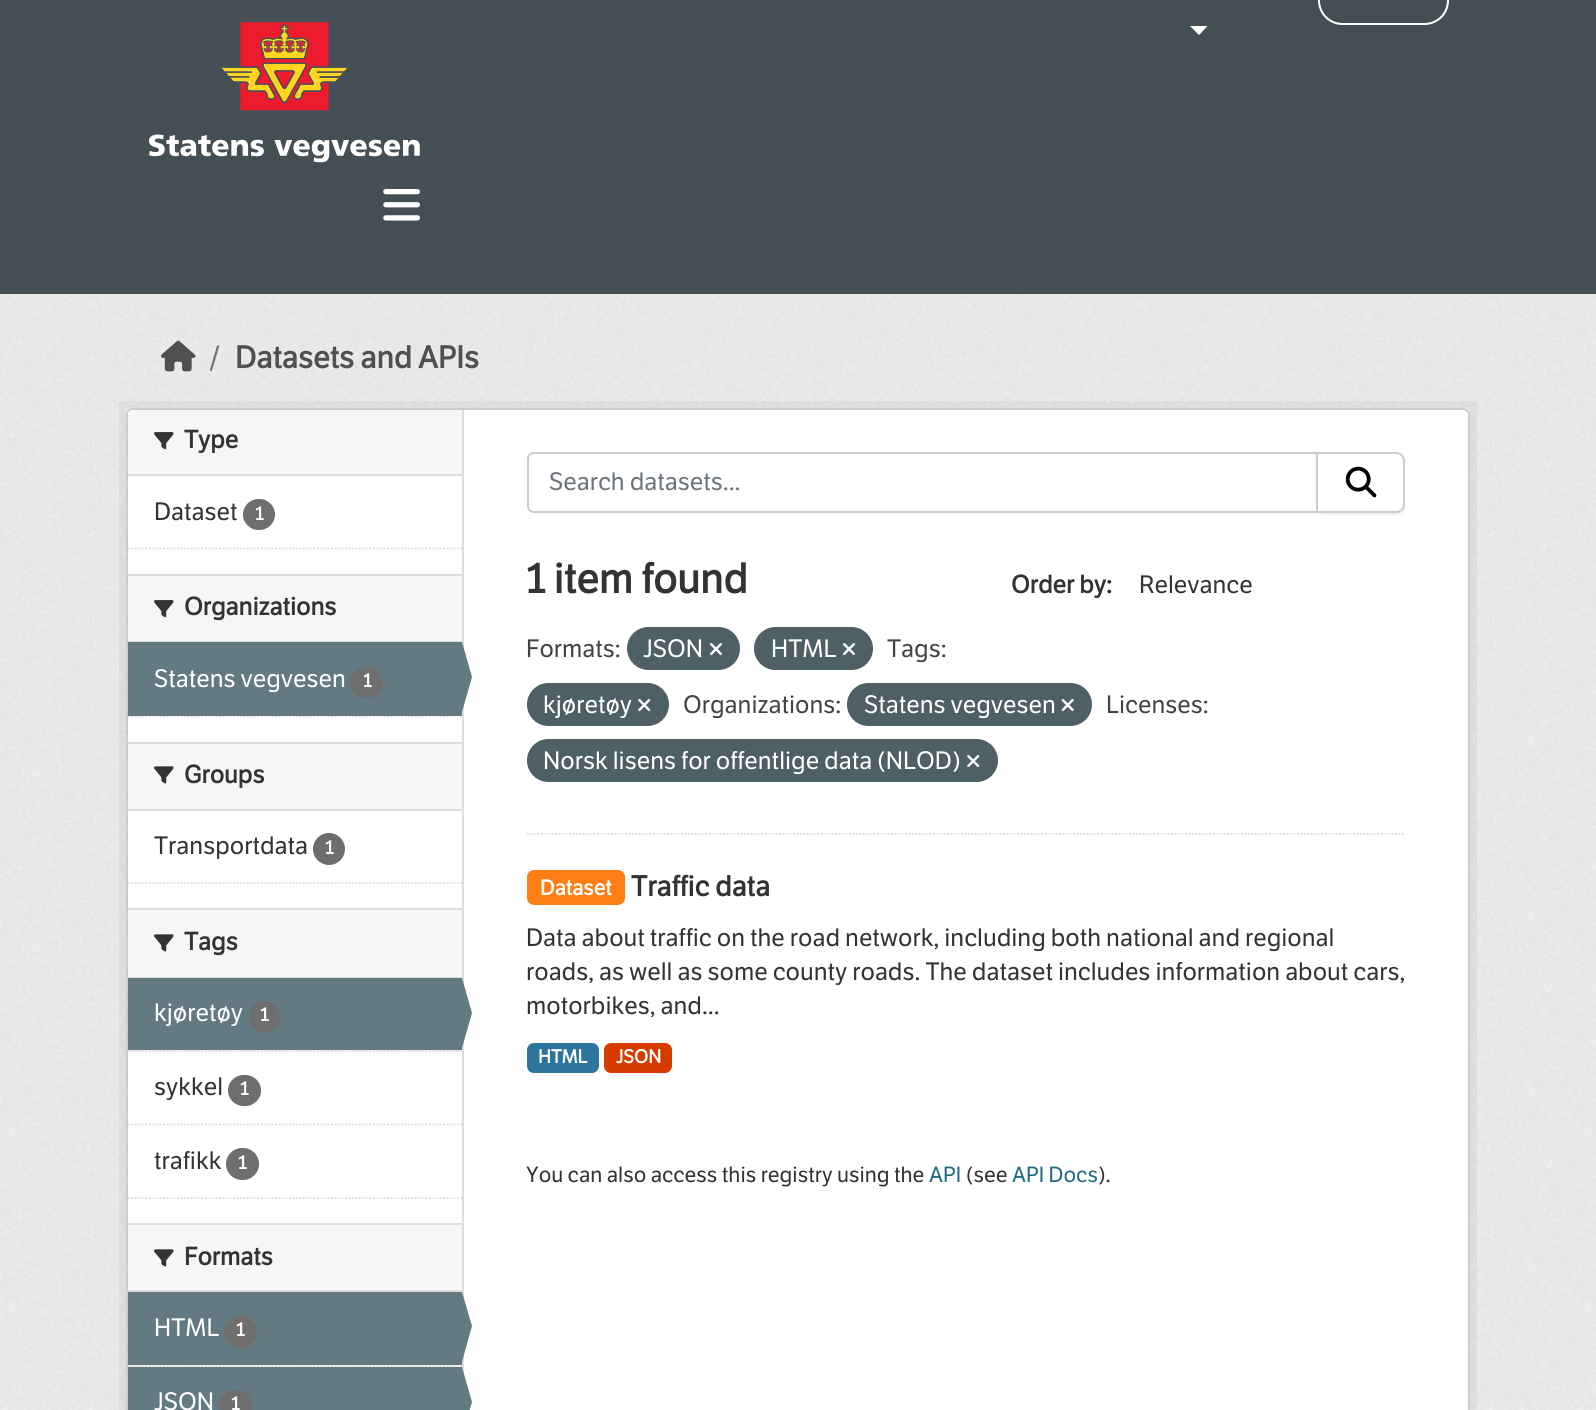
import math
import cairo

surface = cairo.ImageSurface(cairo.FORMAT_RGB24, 1596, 1410)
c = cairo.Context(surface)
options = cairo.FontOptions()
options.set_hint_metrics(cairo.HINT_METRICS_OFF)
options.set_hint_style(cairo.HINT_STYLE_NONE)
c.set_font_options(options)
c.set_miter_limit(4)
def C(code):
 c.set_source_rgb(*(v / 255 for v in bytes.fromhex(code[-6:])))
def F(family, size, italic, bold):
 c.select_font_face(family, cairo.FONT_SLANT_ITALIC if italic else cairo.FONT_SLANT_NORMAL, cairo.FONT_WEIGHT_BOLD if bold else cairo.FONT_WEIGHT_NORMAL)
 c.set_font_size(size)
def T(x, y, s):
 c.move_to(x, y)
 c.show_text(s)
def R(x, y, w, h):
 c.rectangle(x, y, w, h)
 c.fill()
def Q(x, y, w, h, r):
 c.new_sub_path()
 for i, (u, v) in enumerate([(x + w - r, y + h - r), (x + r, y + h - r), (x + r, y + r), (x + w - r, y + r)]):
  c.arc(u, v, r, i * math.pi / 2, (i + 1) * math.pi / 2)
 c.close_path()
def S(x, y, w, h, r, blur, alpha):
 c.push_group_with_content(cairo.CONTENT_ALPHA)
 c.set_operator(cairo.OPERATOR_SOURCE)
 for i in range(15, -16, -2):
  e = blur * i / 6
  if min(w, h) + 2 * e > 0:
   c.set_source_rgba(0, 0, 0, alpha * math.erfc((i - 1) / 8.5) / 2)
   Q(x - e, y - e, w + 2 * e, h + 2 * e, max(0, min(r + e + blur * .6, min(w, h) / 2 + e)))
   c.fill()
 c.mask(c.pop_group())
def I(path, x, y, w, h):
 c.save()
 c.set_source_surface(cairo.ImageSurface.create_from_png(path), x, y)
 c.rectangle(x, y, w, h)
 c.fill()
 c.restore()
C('444f55')
c.paint()
Q(1319,-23,129,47,23.5)
C('ffffff')
c.stroke()
c.new_path()
c.move_to(1190,26)
c.line_to(1207.5,26)
c.line_to(1199,35)
c.close_path()
c.fill()
I('1.png',149,21,271,142)
I('2.png',383,189,37,32)
C('eeeeee')
R(0,294,1596,1116)
I('3.png',0,294,1596,1116)
I('4.png',161,340,35,32)
F('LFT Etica',30.5,0,0)
C('6c757d')
T(209,368,'/')
F('LFT Etica',30.5,0,1)
C('505050')
T(235,368,'Datasets and APIs')
c.rectangle(122.5,404.5,1351,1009)
c.set_source_rgba(0,0,0,0.05)
c.set_line_width(7)
c.stroke()
C('ffffff')
Q(127,409,1342,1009,6)
c.fill_preserve()
C('cccccc')
c.set_line_width(2)
c.stroke()
C('f6f6f6')
c.new_path()
c.move_to(133,410)
c.line_to(462,410)
c.line_to(462,476)
c.line_to(128,476)
c.line_to(128,415)
c.curve_to(128,412,130,410,133,410)
c.close_path()
c.fill()
C('dddddd')
R(128,474,334,2)
I('5.png',154,432,20,18)
F('LFT Etica',24.5,0,1)
C('333333')
T(184,448,'Type')
F('LFT Etica',24.5,0,0)
T(154,520,'Dataset')
C('6e6e6e')
Q(243,499,32,31,15.5)
c.fill()
F('LFT Etica',18.5,0,1)
C('ffffff')
T(255,520,'1')
c.new_path()
c.move_to(128,548.5)
c.line_to(462,548.5)
C('dddddd')
c.set_line_width(1.8)
c.set_dash([1.75,1.75])
c.stroke()
C('f6f6f6')
R(128,576,334,65)
C('dddddd')
R(128,574,334,2)
R(128,641,334,1)
I('5.png',154,600,20,18)
F('LFT Etica',24.5,0,1)
C('333333')
T(184,615,'Organizations')
c.new_path()
c.move_to(128,716.5)
c.line_to(462,716.5)
C('dddddd')
c.stroke()
C('647a82')
R(128,642,334,74)
F('LFT Etica',24.5,0,0)
C('ffffff')
T(154,687,'Statens vegvesen')
C('6e6e6e')
Q(350,667,33,31,15.5)
c.fill()
F('LFT Etica',18.5,0,1)
C('ffffff')
T(363,687,'1')
C('dddddd')
R(462,410,2,964)
C('647a82')
c.new_path()
c.move_to(462,712)
c.line_to(462,642)
c.line_to(472,677)
c.close_path()
c.fill()
C('f6f6f6')
R(128,744,334,65)
C('dddddd')
R(128,742,334,2)
R(128,809,334,2)
I('6.png',154,766,20,18)
F('LFT Etica',24.5,0,1)
C('333333')
T(184,783,'Groups')
F('LFT Etica',24.5,0,0)
T(154,854,'Transportdata')
C('6e6e6e')
c.new_path()
c.arc(329,849,16,0,2 * math.pi)
c.fill()
F('LFT Etica',18.5,0,1)
C('ffffff')
T(325,854,'1')
c.new_path()
c.move_to(128,883)
c.line_to(462,883)
C('dddddd')
c.stroke()
C('f6f6f6')
R(128,910,334,67)
C('dddddd')
R(128,908,334,2)
R(128,977,334,1)
I('6.png',154,934,20,18)
F('LFT Etica',24.5,0,1)
C('333333')
T(184,950,'Tags')
C('f6f6f6')
R(128,1050,334,2)
c.new_path()
c.move_to(128,1051)
c.line_to(462,1051)
C('dddddd')
c.stroke()
C('647a82')
R(128,978,334,72)
F('LFT Etica',24.5,0,0)
C('ffffff')
T(154,1021,'kjøretøy')
C('6e6e6e')
Q(249,1001,31,32,15.5)
c.fill()
F('LFT Etica',18.5,0,1)
C('ffffff')
T(260,1021,'1')
C('647a82')
c.new_path()
c.move_to(462,1048)
c.line_to(462,978)
c.line_to(472,1013)
c.close_path()
c.fill()
c.new_path()
c.move_to(128,1124.5)
c.line_to(462,1124.5)
C('dddddd')
c.stroke()
F('LFT Etica',24.5,0,0)
C('333333')
T(154,1095,'sykkel')
C('6e6e6e')
Q(228,1075,33,31,15.5)
c.fill()
F('LFT Etica',18.5,0,1)
C('ffffff')
T(240,1095,'1')
F('LFT Etica',24.5,0,0)
C('333333')
T(154,1169,'trafikk')
C('6e6e6e')
Q(226,1148,33,32,16)
c.fill()
F('LFT Etica',18.5,0,1)
C('ffffff')
T(238,1169,'1')
c.new_path()
c.move_to(128,1198)
c.line_to(462,1198)
C('dddddd')
c.stroke()
C('f6f6f6')
R(128,1225,334,65)
C('dddddd')
R(128,1223,334,2)
R(128,1290,334,2)
I('6.png',154,1249,20,18)
F('LFT Etica',24.5,0,1)
C('333333')
T(184,1265,'Formats')
C('f6f6f6')
R(128,1365,334,2)
c.new_path()
c.move_to(128,1366)
c.line_to(462,1366)
C('dddddd')
c.stroke()
C('647a82')
R(128,1292,334,73)
F('LFT Etica',24.5,0,0)
C('ffffff')
T(154,1336,'HTML')
C('6e6e6e')
Q(224,1316,33,32,16)
c.fill()
F('LFT Etica',18.5,0,1)
C('ffffff')
T(236,1336,'1')
C('647a82')
c.new_path()
c.move_to(462,1362)
c.line_to(462,1292)
c.line_to(472,1326)
c.close_path()
c.fill()
R(128,1367,334,43)
F('LFT Etica',24.5,0,0)
C('ffffff')
T(154,1410,'JSON')
C('6e6e6e')
Q(219,1390,33,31,15.5)
c.fill()
F('LFT Etica',18.5,0,1)
C('ffffff')
T(231,1410,'1')
C('647a82')
c.new_path()
c.move_to(462,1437)
c.line_to(462,1367)
c.line_to(472,1402)
c.close_path()
c.fill()
c.new_path()
c.move_to(527,834)
c.line_to(1405,834)
C('dddddd')
c.stroke()
c.new_path()
c.move_to(534,453)
c.line_to(1317,453)
c.line_to(1317,512)
c.line_to(534,512)
c.curve_to(530.5,512,528,509.5,528,506)
c.line_to(528,459)
c.curve_to(528,455.5,530.5,453,534,453)
c.close_path()
C('cccccc')
c.set_line_width(2)
c.set_dash([])
c.stroke()
F('LFT Etica',24.5,0,0)
C('6c757d')
T(549,490,'Search datasets...')
C('000000')
S(1316,453,89,62,9,1,.07)
C('ffffff')
c.new_path()
c.move_to(1317,453)
c.line_to(1396,453)
c.curve_to(1400.5,453,1404,456.5,1404,461)
c.line_to(1404,504)
c.curve_to(1404,508.5,1400.5,512,1396,512)
c.line_to(1317,512)
c.close_path()
c.fill_preserve()
C('cccccc')
c.stroke()
I('7.png',1345,466,32,32)
F('LFT Etica',41,0,1)
C('333333')
T(526,593,'1 item found')
F('LFT Etica',24.5,0,1)
T(1011,593,'Order by:')
F('LFT Etica',24.5,0,0)
T(1139,593,'Relevance')
C('444444')
T(526,657,'Formats:')
C('4e5f65')
Q(627,627,113,43,21.5)
c.fill()
C('ffffff')
T(643,657,'JSON')
I('8.png',710,643,12,12)
C('4e5f65')
Q(754,627,119,43,21.5)
c.fill()
C('ffffff')
T(771,657,'HTML')
I('8.png',843,643,12,12)
C('444444')
T(887,657,'Tags:')
C('4e5f65')
Q(527,683,142,43,21.5)
c.fill()
C('ffffff')
T(543,713,'kjøretøy')
I('9.png',638,699,13,12)
C('444444')
T(683,713,'Organizations:')
C('4e5f65')
Q(847,683,245,43,21.5)
c.fill()
C('ffffff')
T(864,713,'Statens vegvesen')
I('10.png',1061,699,13,12)
C('444444')
T(1106,713,'Licenses:')
C('4e5f65')
Q(527,739,471,43,21.5)
c.fill()
C('ffffff')
T(543,769,'Norsk lisens for offentlige data (NLOD)')
I('9.png',967,755,13,12)
C('fd7e14')
Q(527,870,98,35,7)
c.fill()
F('LFT Etica',21,0,1)
C('ffffff')
T(540,895,'Dataset')
F('LFT Etica',28,0,1)
C('333333')
T(631,896,'Traffic data')
F('LFT Etica',24.5,0,0)
T(526,946,'Data about traffic on the road network, including both national and regional')
T(526,980,'roads, as well as some county roads. The dataset includes information about cars,')
T(526,1014,'motorbikes, and...')
C('2e759e')
Q(527,1043,72,30,7)
c.fill()
F('LFT Etica',18.5,0,1)
C('ffffff')
T(538,1063,'HTML')
C('d63b00')
Q(604,1043,68,30,7)
c.fill()
C('ffffff')
T(616,1063,'JSON')
F('LFT Etica',21.4,0,0)
C('333333')
T(526,1182,'You can also access this registry using the')
C('206b82')
T(929,1182,'API')
C('333333')
T(966,1182,'(see')
C('206b82')
T(1012,1182,'API Docs')
C('333333')
T(1098,1182,').')
surface.write_to_png('o.png')
